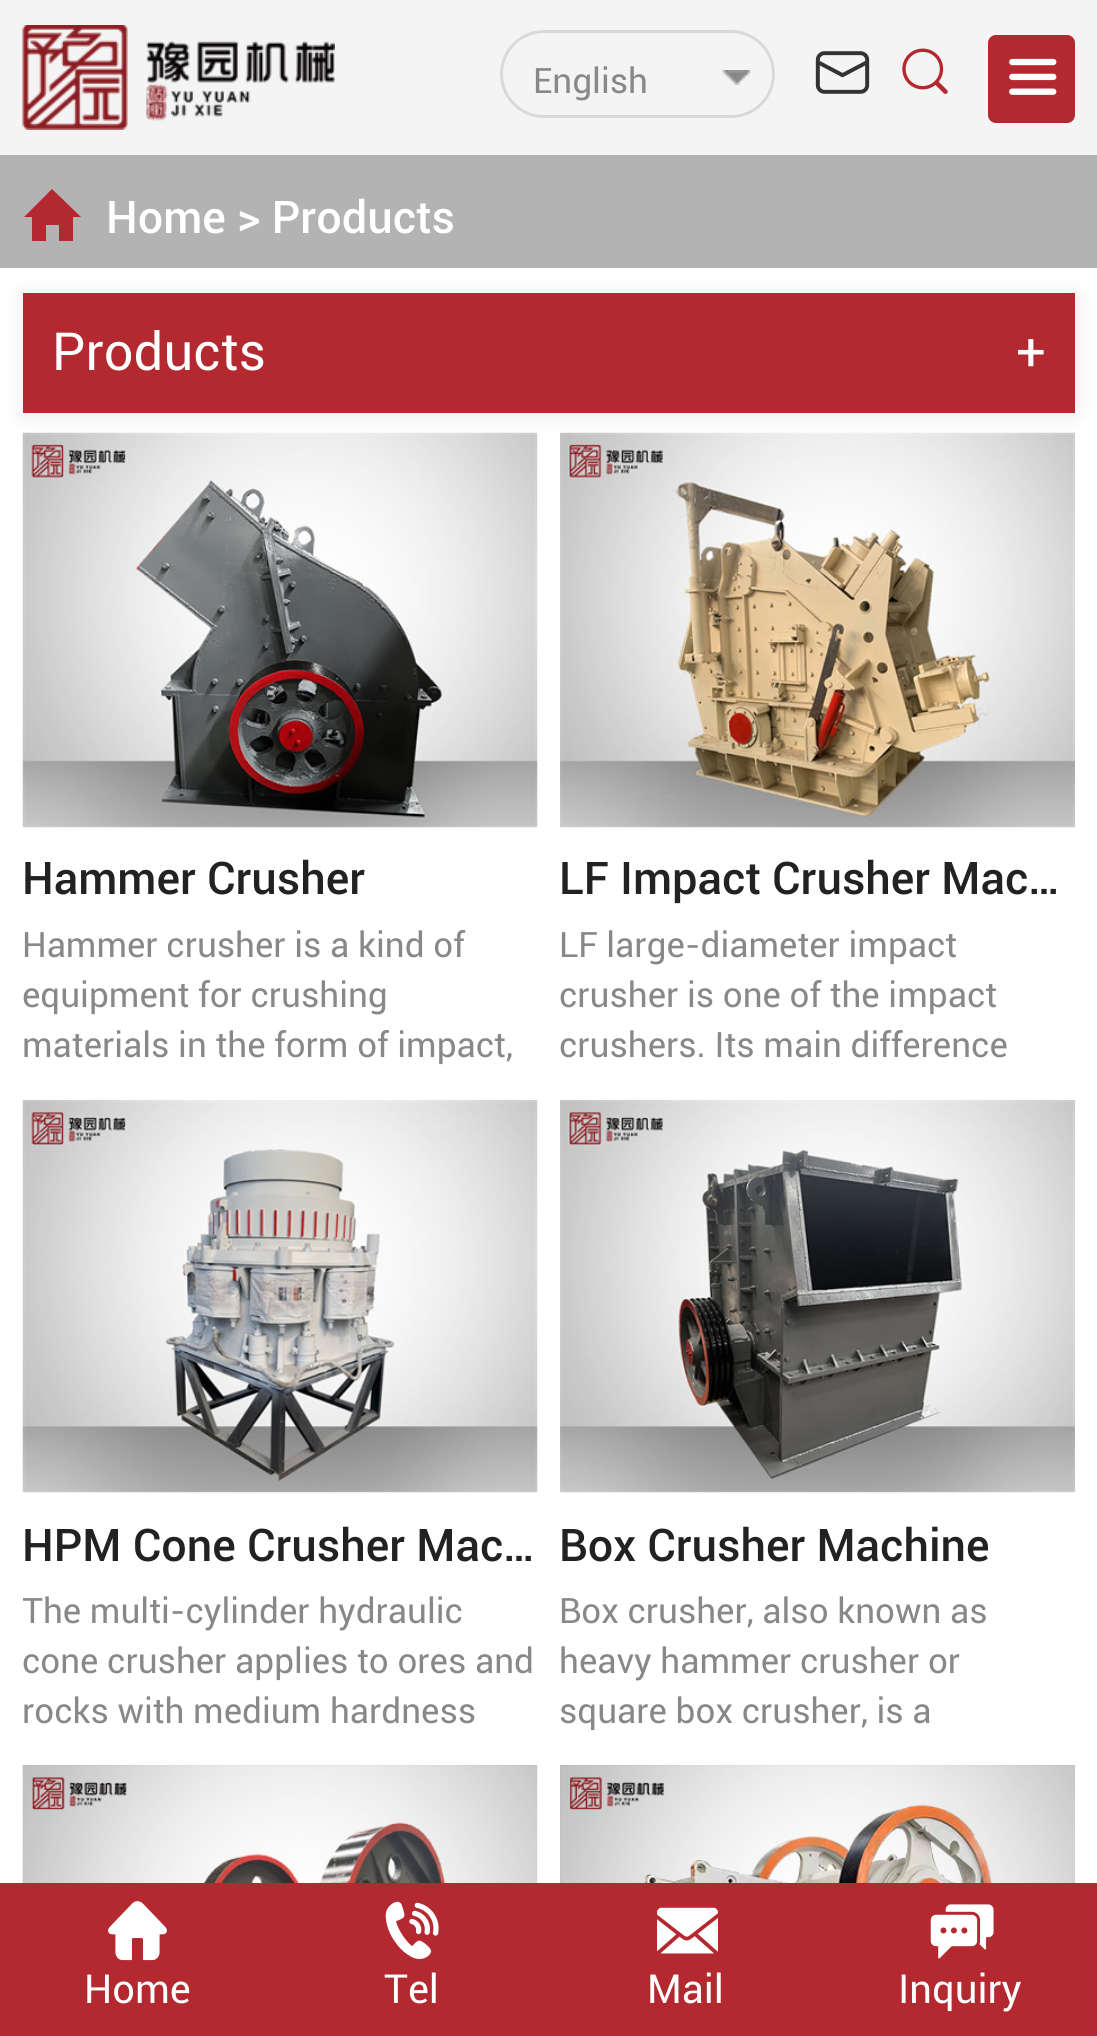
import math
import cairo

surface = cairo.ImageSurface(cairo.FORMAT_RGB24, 1097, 2036)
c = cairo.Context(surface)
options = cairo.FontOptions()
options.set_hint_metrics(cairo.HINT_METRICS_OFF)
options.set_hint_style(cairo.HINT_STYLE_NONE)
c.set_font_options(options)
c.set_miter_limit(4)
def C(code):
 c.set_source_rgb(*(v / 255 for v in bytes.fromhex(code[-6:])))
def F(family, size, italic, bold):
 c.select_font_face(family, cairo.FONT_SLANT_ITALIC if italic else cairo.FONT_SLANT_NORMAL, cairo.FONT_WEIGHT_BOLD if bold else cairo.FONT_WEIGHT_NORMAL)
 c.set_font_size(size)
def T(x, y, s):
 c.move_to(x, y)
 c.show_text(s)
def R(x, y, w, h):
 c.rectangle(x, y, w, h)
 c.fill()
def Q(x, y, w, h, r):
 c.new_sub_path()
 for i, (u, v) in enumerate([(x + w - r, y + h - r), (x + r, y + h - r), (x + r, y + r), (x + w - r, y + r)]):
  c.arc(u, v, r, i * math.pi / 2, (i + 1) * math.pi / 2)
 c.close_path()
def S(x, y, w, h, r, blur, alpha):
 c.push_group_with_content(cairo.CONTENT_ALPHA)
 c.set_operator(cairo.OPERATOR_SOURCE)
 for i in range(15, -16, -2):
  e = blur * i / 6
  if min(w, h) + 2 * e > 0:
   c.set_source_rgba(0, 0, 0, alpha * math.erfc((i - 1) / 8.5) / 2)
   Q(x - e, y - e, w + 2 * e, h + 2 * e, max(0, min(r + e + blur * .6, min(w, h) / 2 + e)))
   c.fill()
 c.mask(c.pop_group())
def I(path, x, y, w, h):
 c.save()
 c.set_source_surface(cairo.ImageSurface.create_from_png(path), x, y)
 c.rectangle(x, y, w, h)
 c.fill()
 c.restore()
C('ffffff')
c.paint()
C('f4f4f4')
R(0,0,1097,155)
I('1.png',22,25,313,105)
Q(501.5,31.5,272,85,42.5)
C('d9d9d9')
c.set_line_width(3)
c.stroke()
I('2.png',722,70,28,15)
F('Roboto',35,0,0)
C('888888')
T(533,93,'English')
I('3.png',815,51,55,43)
I('4.png',902,48,46,46)
C('b3292f')
Q(988,35,87,88,8)
c.fill()
I('5.png',1009,58,48,37)
C('b3b3b3')
R(0,155,1097,113)
C('b3292f')
c.new_path()
c.move_to(22,235)
c.line_to(22,235)
c.close_path()
c.move_to(32,217)
c.line_to(32,241)
c.line_to(46,241)
c.line_to(46,225)
c.line_to(59,225)
c.line_to(59,241)
c.line_to(73,241)
c.line_to(73,217)
c.line_to(81,217)
c.line_to(52,189)
c.line_to(24,217)
c.close_path()
c.move_to(83,235)
c.line_to(83,235)
c.close_path()
c.fill()
F('Roboto Medium',45,0,0)
C('ffffff')
T(106,233,'Home > Products')
C('000000')
S(23,295,1052,120,0,12.5,.08)
C('b3292f')
R(23,293,1052,120)
F('Roboto',52.5,0,0)
C('ffffff')
T(52,370,'Products')
T(1016,370,'+')
I('6.png',22,432,516,396)
F('Roboto Medium',45,0,0)
C('222222')
T(22,894,'Hammer Crusher')
F('Roboto',35,0,0)
C('888888')
T(22,957,'Hammer crusher is a kind of')
T(22,1007,'equipment for crushing')
T(22,1057,'materials in the form of impact,')
I('7.png',560,432,515,396)
F('Roboto Medium',45,0,0)
C('222222')
T(559,894,'LF Impact Crusher Mac…')
F('Roboto',35,0,0)
C('888888')
T(559,957,'LF large-diameter impact')
T(559,1007,'crusher is one of the impact')
T(559,1057,'crushers. Its main difference')
I('8.png',22,1100,516,393)
F('Roboto Medium',45,0,0)
C('222222')
T(22,1561,'HPM Cone Crusher Mac…')
c.save()
c.rectangle(23,1585,515,150)
c.clip()
F('Roboto',35,0,0)
C('888888')
T(22,1623,'The multi-cylinder hydraulic')
c.restore()
F('Roboto',35,0,0)
C('888888')
T(22,1673,'cone crusher applies to ores and')
T(22,1723,'rocks with medium hardness')
I('9.png',560,1100,515,393)
F('Roboto Medium',45,0,0)
C('222222')
T(559,1561,'Box Crusher Machine')
F('Roboto',35,0,0)
C('888888')
T(559,1623,'Box crusher, also known as')
T(559,1673,'heavy hammer crusher or')
T(559,1723,'square box crusher, is a')
I('10.png',22,1765,516,118)
I('11.png',560,1765,515,118)
C('b3292f')
R(0,1883,1097,153)
I('12.png',108,1901,59,60)
F('Roboto',40,0,0)
C('ffffff')
T(84,2003,'Home')
I('13.png',385,1901,54,58)
T(384,2003,'Tel')
I('14.png',657,1907,61,47)
T(647,2003,'Mail')
I('15.png',930,1904,64,55)
T(898,2003,'Inquiry')
surface.write_to_png('o.png')
